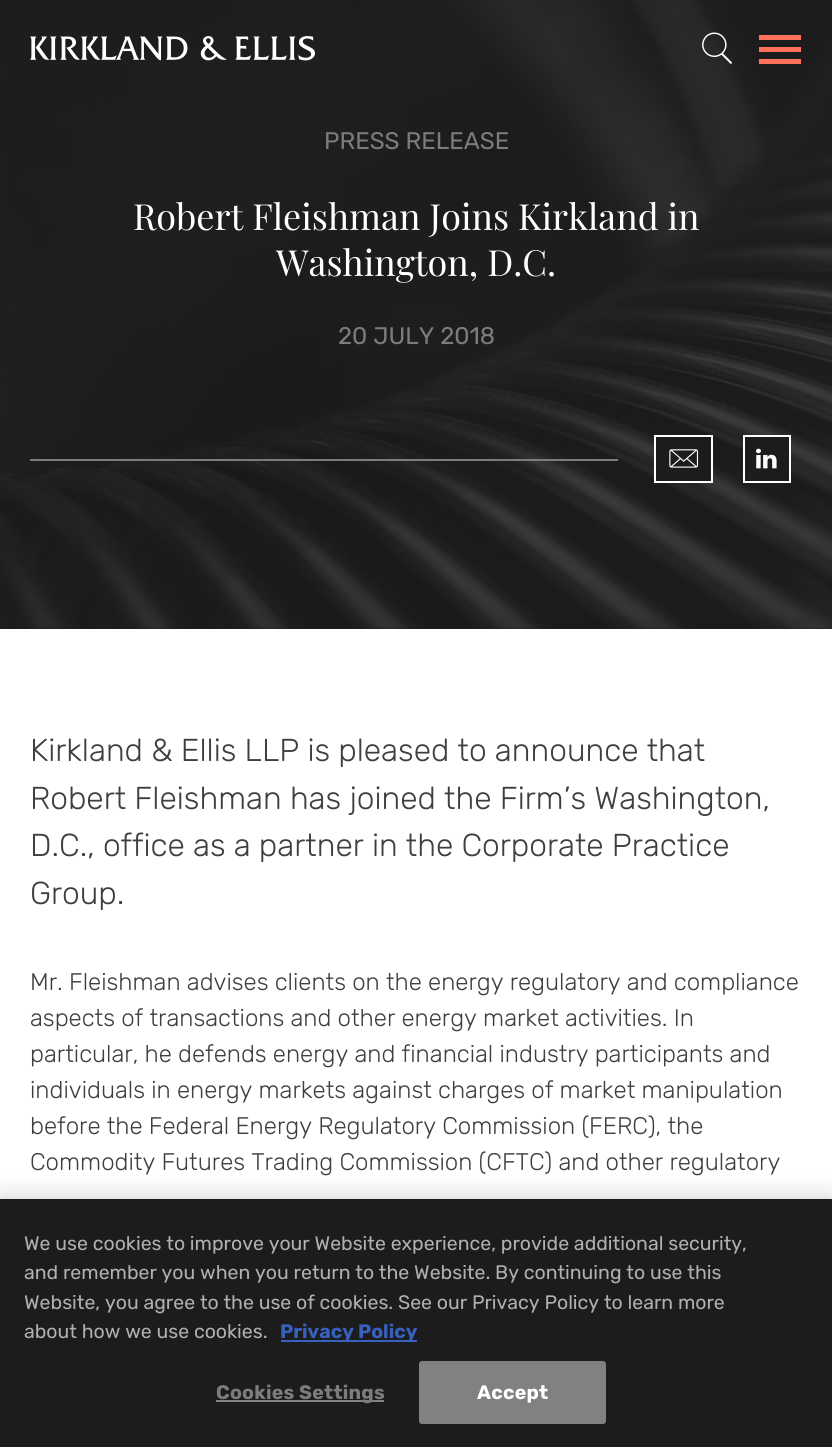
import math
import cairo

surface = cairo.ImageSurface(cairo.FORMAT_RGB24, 832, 1447)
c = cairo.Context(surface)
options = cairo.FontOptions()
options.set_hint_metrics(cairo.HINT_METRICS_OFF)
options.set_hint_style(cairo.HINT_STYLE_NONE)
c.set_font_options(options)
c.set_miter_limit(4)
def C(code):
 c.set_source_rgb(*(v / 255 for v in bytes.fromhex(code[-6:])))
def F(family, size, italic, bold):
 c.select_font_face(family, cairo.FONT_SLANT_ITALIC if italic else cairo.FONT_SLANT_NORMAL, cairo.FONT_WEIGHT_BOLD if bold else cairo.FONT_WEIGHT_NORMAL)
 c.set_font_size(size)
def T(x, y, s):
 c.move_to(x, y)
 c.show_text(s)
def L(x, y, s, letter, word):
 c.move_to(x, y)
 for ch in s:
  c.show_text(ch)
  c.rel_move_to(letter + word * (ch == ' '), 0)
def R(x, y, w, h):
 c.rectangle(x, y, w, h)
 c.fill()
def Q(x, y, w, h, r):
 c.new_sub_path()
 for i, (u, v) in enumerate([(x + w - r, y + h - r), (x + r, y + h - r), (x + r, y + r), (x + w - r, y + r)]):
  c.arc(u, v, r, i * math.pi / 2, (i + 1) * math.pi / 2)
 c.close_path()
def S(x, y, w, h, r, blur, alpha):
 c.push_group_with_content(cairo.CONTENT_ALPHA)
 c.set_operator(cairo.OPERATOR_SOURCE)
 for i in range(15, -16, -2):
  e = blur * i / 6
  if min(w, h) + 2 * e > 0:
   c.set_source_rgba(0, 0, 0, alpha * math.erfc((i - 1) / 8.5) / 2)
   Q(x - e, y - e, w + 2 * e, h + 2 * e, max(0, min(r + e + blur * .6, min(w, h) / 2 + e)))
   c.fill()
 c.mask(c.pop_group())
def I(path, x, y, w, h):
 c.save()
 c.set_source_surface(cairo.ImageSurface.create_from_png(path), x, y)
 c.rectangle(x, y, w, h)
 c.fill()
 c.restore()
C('ffffff')
c.paint()
C('1c1c1c')
R(0,0,832,629)
I('3.png',0,0,832,629)
I('1.png',30,36,285,25)
I('2.png',702,32,30,32)
C('ff715b')
R(759,47,42,5)
R(759,35,42,5)
R(759,59,42,5)
gradient = cairo.LinearGradient(416,0,416,629)
gradient.add_color_stop_rgba(0,0,0,0,0)
gradient.add_color_stop_rgba(1,0,0,0,.05)
c.set_source(gradient)
R(499,617,314,11)
F('Rubik',24,0,0)
C('7c7c7c')
T(324,149,'PRESS RELEASE')
F('Playfair Display',36,0,0)
C('ffffff')
T(133,230,'Robert Fleishman Joins Kirkland in')
T(276,276,'Washington, D.C.')
F('Rubik',24,0,0)
C('7c7c7c')
T(338,344,'20 JULY 2018')
R(30,459,588,2)
C('1c1c1c')
R(656,438,55,43)
c.rectangle(655,436,57,46)
C('ffffff')
c.stroke()
I('4.png',669,449,30,19)
C('1c1c1c')
R(745,437,44,35)
c.rectangle(744,436,46,46)
C('ffffff')
c.stroke()
I('5.png',756,448,21,21)
F('Rubik Light',31.7,0,0)
C('3f3f3f')
T(30,761,'Kirkland & Ellis LLP is pleased to announce that')
T(30,809,'Robert Fleishman has joined the Firm’s Washington,')
T(30,856,'D.C., office as a partner in the Corporate Practice')
T(30,904,'Group.')
F('Rubik Light',24,0,0)
T(30,990,'Mr. Fleishman advises clients on the energy regulatory and compliance')
T(30,1026,'aspects of transactions and other energy market activities. In')
T(30,1062,'particular, he defends energy and financial industry participants and')
T(30,1098,'individuals in energy markets against charges of market manipulation')
T(30,1134,'before the Federal Energy Regulatory Commission (FERC), the')
T(30,1170,'Commodity Futures Trading Commission (CFTC) and other regulatory')
C('000000')
S(0,1199,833,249,0,13.5,.2)
C('1c1c1c')
R(0,1199,832,248)
F('Rubik',19.5,0,0)
C('b0b0b0')
T(24,1250,'We use cookies to improve your Website experience, provide additional security,')
T(24,1279,'and remember you when you return to the Website. By continuing to use this')
T(24,1309,'Website, you agree to the use of cookies. See our Privacy Policy to learn more')
T(24,1338,'about how we use cookies.')
C('3860be')
R(281,1340,136,2)
F('Rubik',19.5,0,1)
T(280,1338,'Privacy Policy')
C('818181')
R(216,1400,168,2)
C('7c7c7c')
L(216,1399,'Cookies Settings',.25,0)
C('818181')
Q(420,1362,185,61,2)
c.fill_preserve()
c.stroke()
C('ffffff')
L(477,1399,'Accept',.25,0)
surface.write_to_png('o.png')
